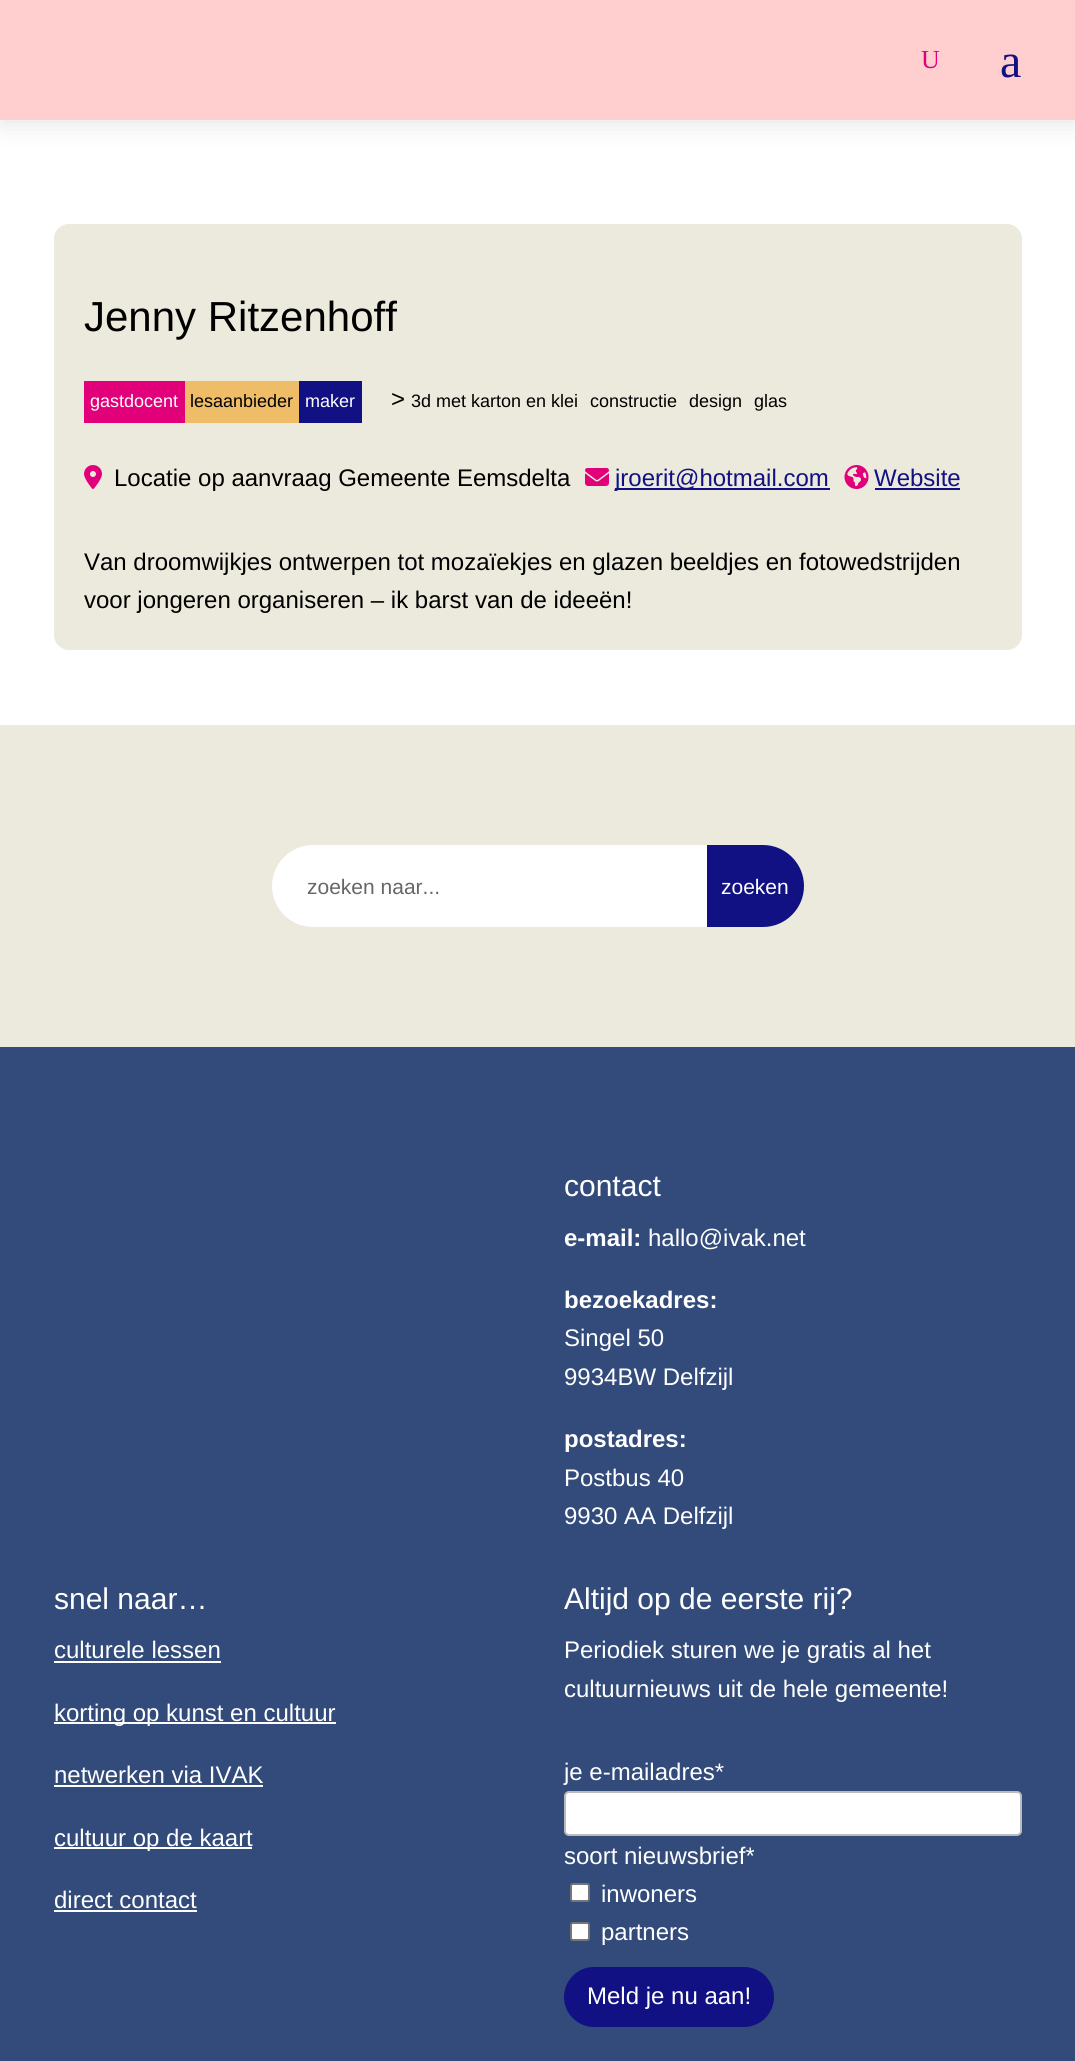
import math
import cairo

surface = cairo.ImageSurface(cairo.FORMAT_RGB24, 1075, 2061)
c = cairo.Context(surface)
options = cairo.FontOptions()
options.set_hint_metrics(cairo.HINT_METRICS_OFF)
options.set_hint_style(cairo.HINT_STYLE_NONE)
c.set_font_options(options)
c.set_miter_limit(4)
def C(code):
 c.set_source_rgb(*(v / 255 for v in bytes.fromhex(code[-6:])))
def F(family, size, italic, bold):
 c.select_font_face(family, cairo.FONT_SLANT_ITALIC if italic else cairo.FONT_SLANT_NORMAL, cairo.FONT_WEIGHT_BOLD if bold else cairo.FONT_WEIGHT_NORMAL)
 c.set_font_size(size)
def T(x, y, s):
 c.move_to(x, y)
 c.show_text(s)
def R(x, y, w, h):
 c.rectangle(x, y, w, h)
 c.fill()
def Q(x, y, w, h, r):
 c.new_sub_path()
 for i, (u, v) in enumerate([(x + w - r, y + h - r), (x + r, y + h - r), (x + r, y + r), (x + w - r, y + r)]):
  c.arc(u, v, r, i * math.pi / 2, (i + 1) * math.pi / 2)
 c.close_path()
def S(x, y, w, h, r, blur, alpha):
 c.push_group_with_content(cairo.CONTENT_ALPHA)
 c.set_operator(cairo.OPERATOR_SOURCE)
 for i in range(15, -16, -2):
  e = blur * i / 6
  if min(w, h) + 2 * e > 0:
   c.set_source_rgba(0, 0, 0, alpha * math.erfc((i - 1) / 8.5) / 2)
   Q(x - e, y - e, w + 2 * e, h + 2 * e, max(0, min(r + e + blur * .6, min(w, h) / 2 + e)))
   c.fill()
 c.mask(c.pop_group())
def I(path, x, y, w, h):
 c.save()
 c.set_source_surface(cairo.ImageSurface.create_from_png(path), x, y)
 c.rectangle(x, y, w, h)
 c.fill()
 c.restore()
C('ffffff')
c.paint()
C('000000')
S(0,5,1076,120,0,12,.1)
C('ffcfcf')
R(0,0,1075,120)
F('Liberation Serif',26,0,0)
C('e1007a')
T(921,68,'U')
F('Liberation Serif',48,0,0)
C('111183')
T(1000,77,'a')
C('ece9dd')
Q(54,224,968,426,15)
c.fill()
F('Liberation Sans',42,0,0)
C('000000')
T(84,331,'Jenny Ritzenhoff')
C('e1007a')
R(84,381,101,42)
F('Liberation Sans',18,0,0)
C('ffffff')
T(90,407,'gastdocent')
C('efbd67')
R(185,381,114,42)
C('000000')
T(190,407,'lesaanbieder')
C('111183')
R(299,381,63,42)
C('ffffff')
T(305,407,'maker')
F('Liberation Sans',24,0,0)
C('000000')
T(391,407,'>')
F('Liberation Sans',18,0,0)
T(411,407,'3d met karton en klei')
T(590,407,'constructie')
T(689,407,'design')
T(754,407,'glas')
I('1.png',84,465,18,24)
F('Liberation Sans',24,0,0)
T(114,486,'Locatie op aanvraag Gemeente Eemsdelta')
I('2.png',585,468,24,18)
C('111183')
R(615,488,215,2)
T(615,486,'jroerit@hotmail.com')
I('3.png',844,465,25,24)
T(874,486,'Website')
R(875,488,85,2)
C('000000')
T(84,570,'Van droomwijkjes ontwerpen tot mozaïekjes en glazen beeldjes en fotowedstrijden')
T(84,608,'voor jongeren organiseren – ik barst van de ideeën!')
C('ece9dd')
R(0,725,1075,322)
C('ffffff')
c.new_path()
c.move_to(313,845)
c.line_to(707,845)
c.line_to(707,927)
c.line_to(313,927)
c.curve_to(290.5,927,272,908.5,272,886)
c.curve_to(272,863.5,290.5,845,313,845)
c.close_path()
c.fill()
F('Liberation Sans',21,0,0)
C('666666')
T(307,894,'zoeken naar...')
C('111183')
c.new_path()
c.move_to(707,845)
c.line_to(763,845)
c.curve_to(785.5,845,804,863.5,804,886)
c.curve_to(804,908.5,785.5,927,763,927)
c.line_to(707,927)
c.close_path()
c.fill()
C('ffffff')
T(721,894,'zoeken')
C('324b7a')
R(0,1047,1075,1014)
F('Liberation Sans',30,0,0)
C('ffffff')
T(564,1196,'contact')
F('Liberation Sans',24,0,1)
T(564,1246,'e-mail:')
F('Liberation Sans',24,0,0)
T(648,1246,'hallo@ivak.net')
F('Liberation Sans',24,0,1)
T(564,1308,'bezoekadres:')
F('Liberation Sans',24,0,0)
T(564,1346,'Singel 50')
T(564,1385,'9934BW Delfzijl')
F('Liberation Sans',24,0,1)
T(564,1447,'postadres:')
F('Liberation Sans',24,0,0)
T(564,1486,'Postbus 40')
T(564,1524,'9930 AA Delfzijl')
F('Liberation Sans',30,0,0)
T(54,1609,'snel naar…')
F('Liberation Sans',24,0,0)
T(54,1658,'culturele lessen')
R(54,1661,167,2)
R(54,1722,282,2)
T(54,1721,'korting op kunst en cultuur')
T(54,1783,'netwerken via IVAK')
R(54,1785,209,2)
R(54,1847,198,2)
T(54,1846,'cultuur op de kaart')
T(54,1908,'direct contact')
R(54,1910,143,2)
F('Liberation Sans',30,0,0)
T(564,1609,'Altijd op de eerste rij?')
F('Liberation Sans',24,0,0)
T(564,1658,'Periodiek sturen we je gratis al het')
T(564,1697,'cultuurnieuws uit de hele gemeente!')
T(564,1780,'je e-mailadres*')
Q(565,1792,456,43,4)
c.fill_preserve()
C('bbbbbb')
c.stroke()
C('ffffff')
T(564,1864,'soort nieuwsbrief*')
Q(571,1884,18,17,2)
c.fill_preserve()
C('767676')
c.stroke()
C('ffffff')
T(601,1902,'inwoners')
Q(571,1923,18,17,2)
c.fill_preserve()
C('767676')
c.stroke()
C('ffffff')
T(601,1940,'partners')
C('111183')
Q(564,1967,210,60,30)
c.fill()
C('ffffff')
T(587,2004,'Meld je nu aan!')
surface.write_to_png('o.png')
